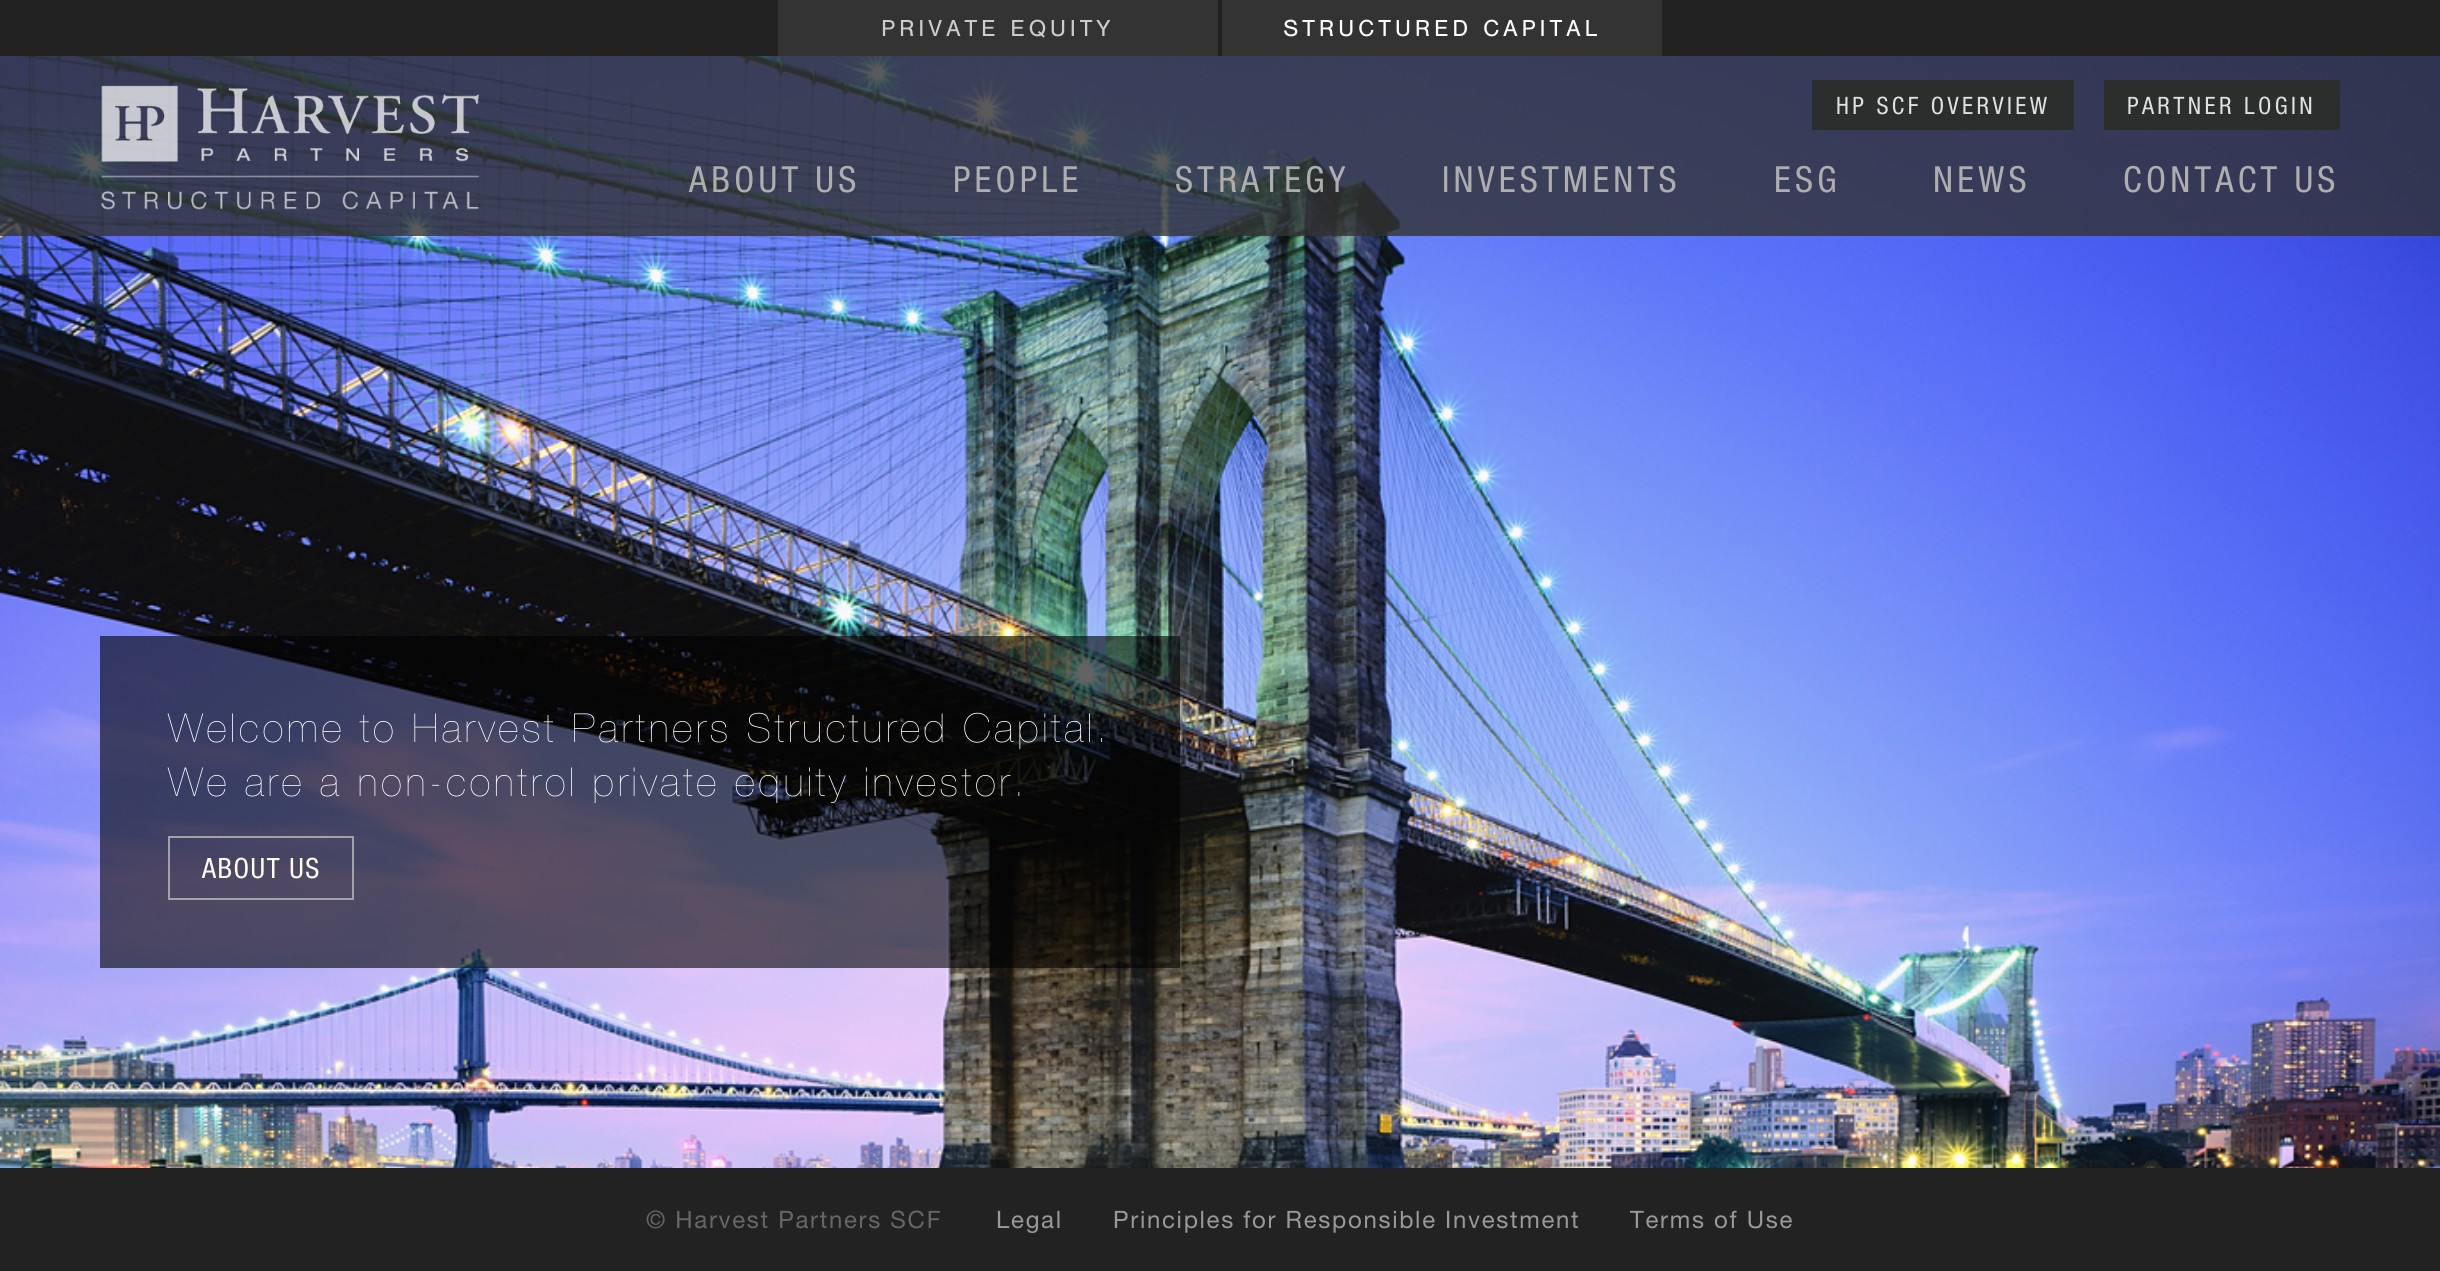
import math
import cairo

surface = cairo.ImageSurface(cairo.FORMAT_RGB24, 2440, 1271)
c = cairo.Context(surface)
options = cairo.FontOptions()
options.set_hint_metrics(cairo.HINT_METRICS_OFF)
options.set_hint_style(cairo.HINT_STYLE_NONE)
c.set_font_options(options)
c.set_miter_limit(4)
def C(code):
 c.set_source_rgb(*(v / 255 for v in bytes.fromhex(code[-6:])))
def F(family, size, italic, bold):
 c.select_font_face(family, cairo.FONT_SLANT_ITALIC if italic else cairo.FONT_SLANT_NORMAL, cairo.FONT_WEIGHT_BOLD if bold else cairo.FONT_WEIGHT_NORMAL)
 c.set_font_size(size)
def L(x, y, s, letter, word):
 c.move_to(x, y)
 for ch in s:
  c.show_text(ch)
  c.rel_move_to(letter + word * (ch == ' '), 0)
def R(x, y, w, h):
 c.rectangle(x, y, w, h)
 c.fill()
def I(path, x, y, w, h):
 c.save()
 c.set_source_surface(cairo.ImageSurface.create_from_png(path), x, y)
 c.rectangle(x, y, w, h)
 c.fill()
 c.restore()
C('ffffff')
c.paint()
C('222222')
R(0,0,2440,56)
C('333333')
R(778,0,440,56)
F('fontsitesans',24,0,0)
C('cccccc')
L(881,36,'PRIVATE EQUITY',3.8,0)
C('333333')
R(1222,0,440,56)
C('ffffff')
L(1283,36,'STRUCTURED CAPITAL',3.8,0)
I('1.png',0,56,2440,1112)
c.set_source_rgba(0.2,0.2,0.2,0.8)
R(0,56,2440,180)
I('2.png',101,85,379,125)
C('2c2d2d')
R(1812,80,262,50)
F('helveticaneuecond',24,0,0)
C('e0e0e0')
L(1836,114,'HP SCF OVERVIEW',3.4,0)
C('2c2d2d')
R(2104,80,236,50)
C('e0e0e0')
L(2127,114,'PARTNER LOGIN',3.4,0)
F('helveticaneuecond',36,0,0)
C('aeaeae')
L(689,192,'ABOUT US',4.25,0)
L(953,192,'PEOPLE',4.25,0)
L(1175,192,'STRATEGY',4.25,0)
L(1442,192,'INVESTMENTS',4.25,0)
L(1774,192,'ESG',4.25,0)
L(1933,192,'NEWS',4.25,0)
L(2123,192,'CONTACT US',4.25,0)
c.set_source_rgba(0,0,0,0.6)
R(100,636,1080,332)
F('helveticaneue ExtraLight',40,0,0)
C('ffffff')
L(168,742,'Welcome to Harvest Partners Structured Capital.',3.6,0)
L(168,796,'We are a non-control private equity investor.',3.6,0)
c.rectangle(169,837,184,62)
C('a2a3a8')
c.stroke()
F('helveticaneuecond',28,0,0)
C('ffffff')
L(202,878,'ABOUT US',1.5,0)
C('222222')
R(0,1168,2440,103)
F('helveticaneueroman',24,0,0)
C('666666')
L(646,1228,'© Harvest Partners SCF',1.7,0)
C('999999')
L(996,1228,'Legal',1.7,0)
L(1113,1228,'Principles for Responsible Investment',1.7,0)
L(1630,1228,'Terms of Use',1.7,0)
surface.write_to_png('o.png')
